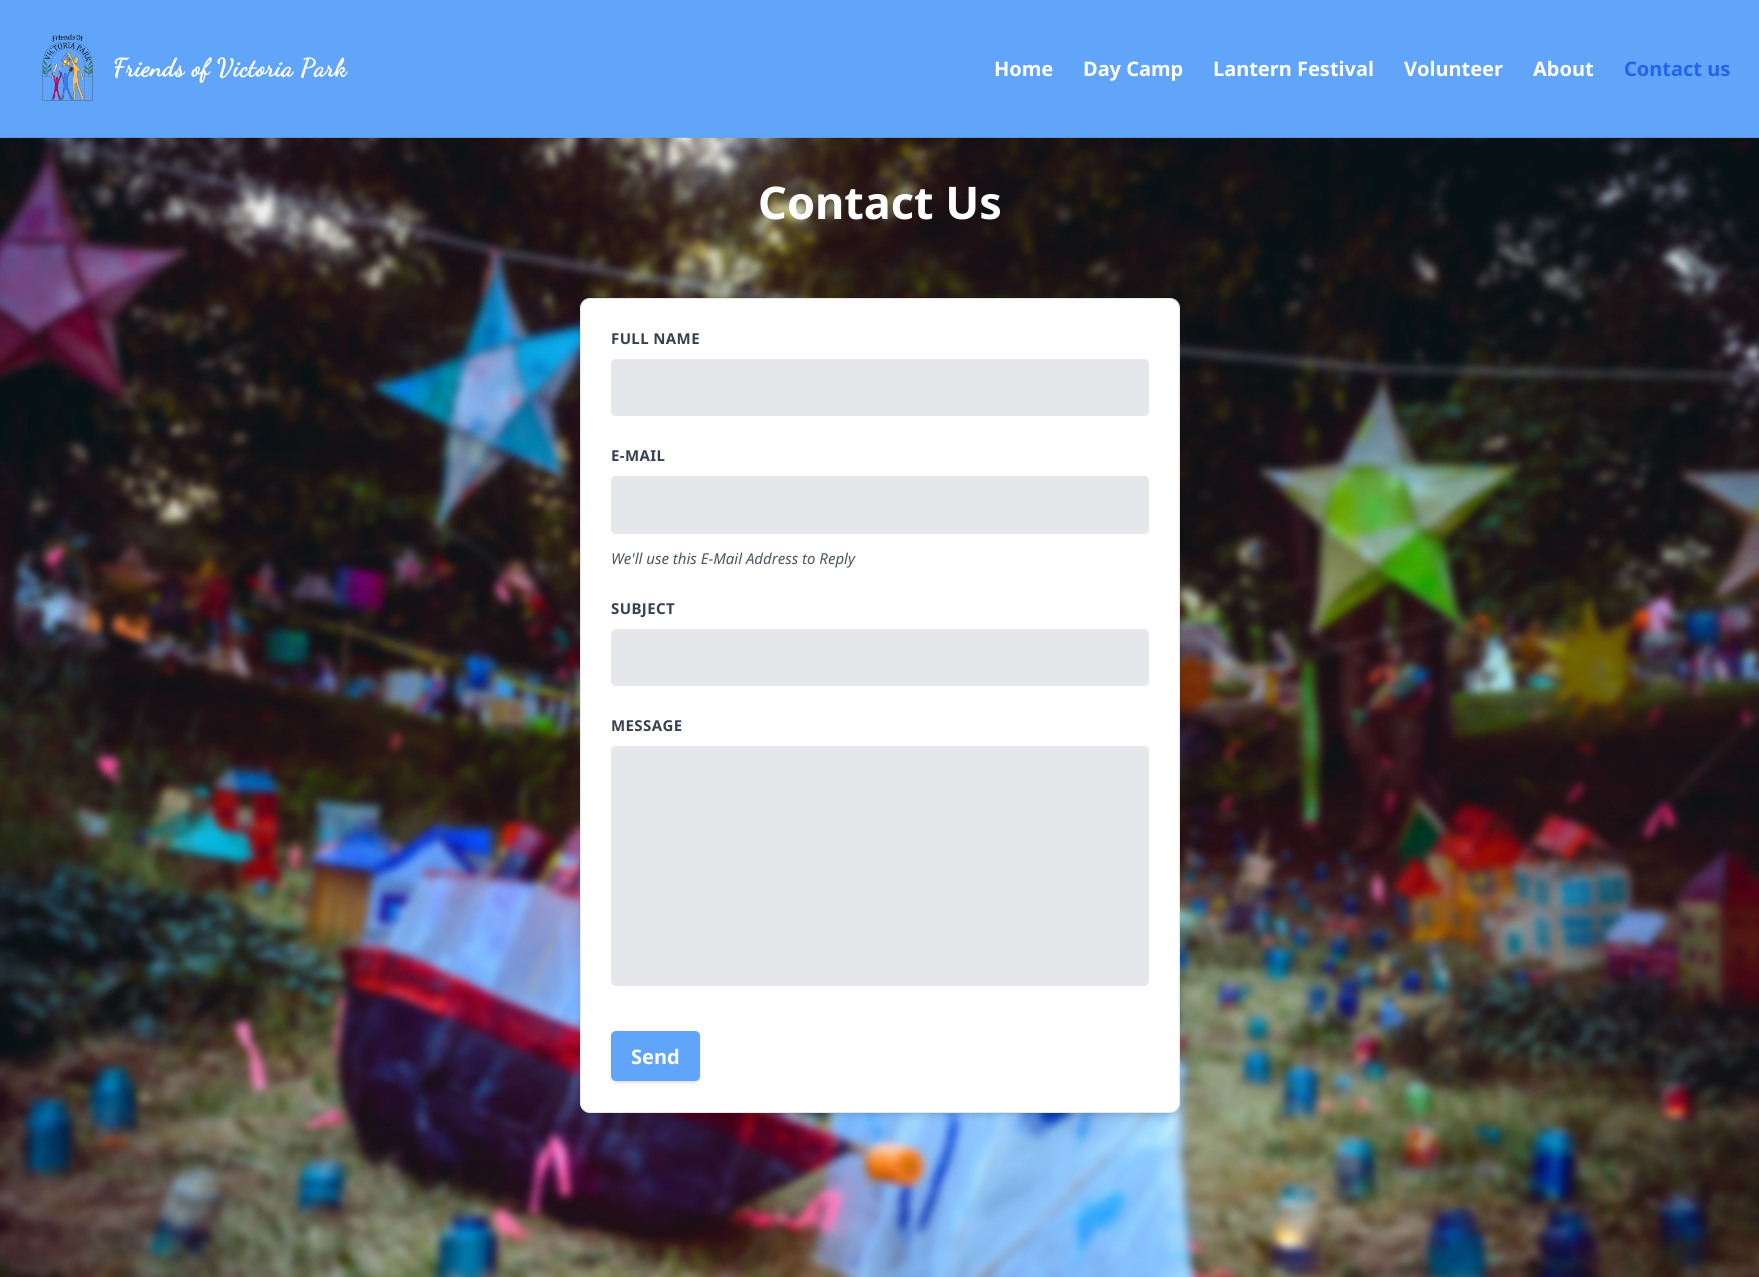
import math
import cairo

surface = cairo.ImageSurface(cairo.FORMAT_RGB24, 1759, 1277)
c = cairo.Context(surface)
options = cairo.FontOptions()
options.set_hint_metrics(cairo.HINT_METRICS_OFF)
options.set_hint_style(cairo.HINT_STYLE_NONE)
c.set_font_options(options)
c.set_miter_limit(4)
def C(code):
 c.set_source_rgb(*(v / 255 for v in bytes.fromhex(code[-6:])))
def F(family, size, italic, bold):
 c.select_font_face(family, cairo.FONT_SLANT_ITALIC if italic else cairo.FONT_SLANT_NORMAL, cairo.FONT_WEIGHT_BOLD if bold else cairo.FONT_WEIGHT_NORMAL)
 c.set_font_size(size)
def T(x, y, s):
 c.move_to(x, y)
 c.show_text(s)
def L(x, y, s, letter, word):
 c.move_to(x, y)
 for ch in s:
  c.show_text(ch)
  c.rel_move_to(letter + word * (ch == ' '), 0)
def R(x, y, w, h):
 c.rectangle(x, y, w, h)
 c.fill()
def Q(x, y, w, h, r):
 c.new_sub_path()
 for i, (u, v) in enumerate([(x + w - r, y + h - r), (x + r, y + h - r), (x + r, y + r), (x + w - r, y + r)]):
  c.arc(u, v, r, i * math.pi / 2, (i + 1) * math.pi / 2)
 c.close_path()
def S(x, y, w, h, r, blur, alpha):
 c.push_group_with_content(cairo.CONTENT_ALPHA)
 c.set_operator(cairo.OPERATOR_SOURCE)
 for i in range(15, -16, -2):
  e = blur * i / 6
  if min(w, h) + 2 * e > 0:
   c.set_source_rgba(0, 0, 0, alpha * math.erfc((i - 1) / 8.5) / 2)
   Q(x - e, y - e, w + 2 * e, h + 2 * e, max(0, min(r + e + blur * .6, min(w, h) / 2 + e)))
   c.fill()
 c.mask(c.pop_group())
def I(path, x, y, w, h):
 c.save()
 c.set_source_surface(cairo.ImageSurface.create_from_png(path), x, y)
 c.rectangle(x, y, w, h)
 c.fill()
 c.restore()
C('60a5fa')
c.paint()
I('2.png',0,137,1759,1140)
c.set_source_rgba(0.376,0.647,0.98,0.75)
R(0,137,1759,1)
I('1.png',42,34,51,67)
F('Dancing Script',25,0,1)
C('ffffff')
L(113,76,'Friends of Victoria Park',.6,0)
F('Noto Sans',20,0,1)
T(994,76,'Home')
T(1083,76,'Day Camp')
T(1213,76,'Lantern Festival')
T(1404,76,'Volunteer')
T(1533,76,'About')
C('2563eb')
T(1624,76,'Contact us')
F('Noto Sans',45,0,1)
C('ffffff')
T(758,219,'Contact Us')
C('000000')
S(583,303,595,810,8,2.5,.1)
S(581,304,598,812,9,4,.1)
C('ffffff')
Q(580.5,298.5,599,814,9.5)
c.fill_preserve()
C('e5e7eb')
c.set_line_width(1)
c.stroke()
F('Noto Sans',15,0,1)
C('374151')
L(611,344,'FULL NAME',.4,0)
C('e5e7eb')
Q(611.5,359.5,537,56,4.5)
c.fill_preserve()
c.stroke()
C('374151')
L(611,461,'E-MAIL',.4,0)
C('e5e7eb')
Q(611.5,476.5,537,57,4.5)
c.fill_preserve()
c.stroke()
F('Noto Sans',15,1,0)
C('4b5563')
T(611,564,'We\'ll use this E-Mail Address to Reply')
F('Noto Sans',15,0,1)
C('374151')
L(611,614,'SUBJECT',.4,0)
C('e5e7eb')
Q(611.5,629.5,537,56,4.5)
c.fill_preserve()
c.stroke()
C('374151')
L(611,731,'MESSAGE',.4,0)
C('e5e7eb')
Q(611.5,746.5,537,239,4.5)
c.fill_preserve()
c.stroke()
C('000000')
S(613,1034,86,47,4,1,.1)
S(611,1033,89,50,5,2,.1)
C('60a5fa')
Q(611,1031,89,50,5)
c.fill()
F('Noto Sans',20,0,1)
C('ffffff')
T(631,1064,'Send')
surface.write_to_png('o.png')
